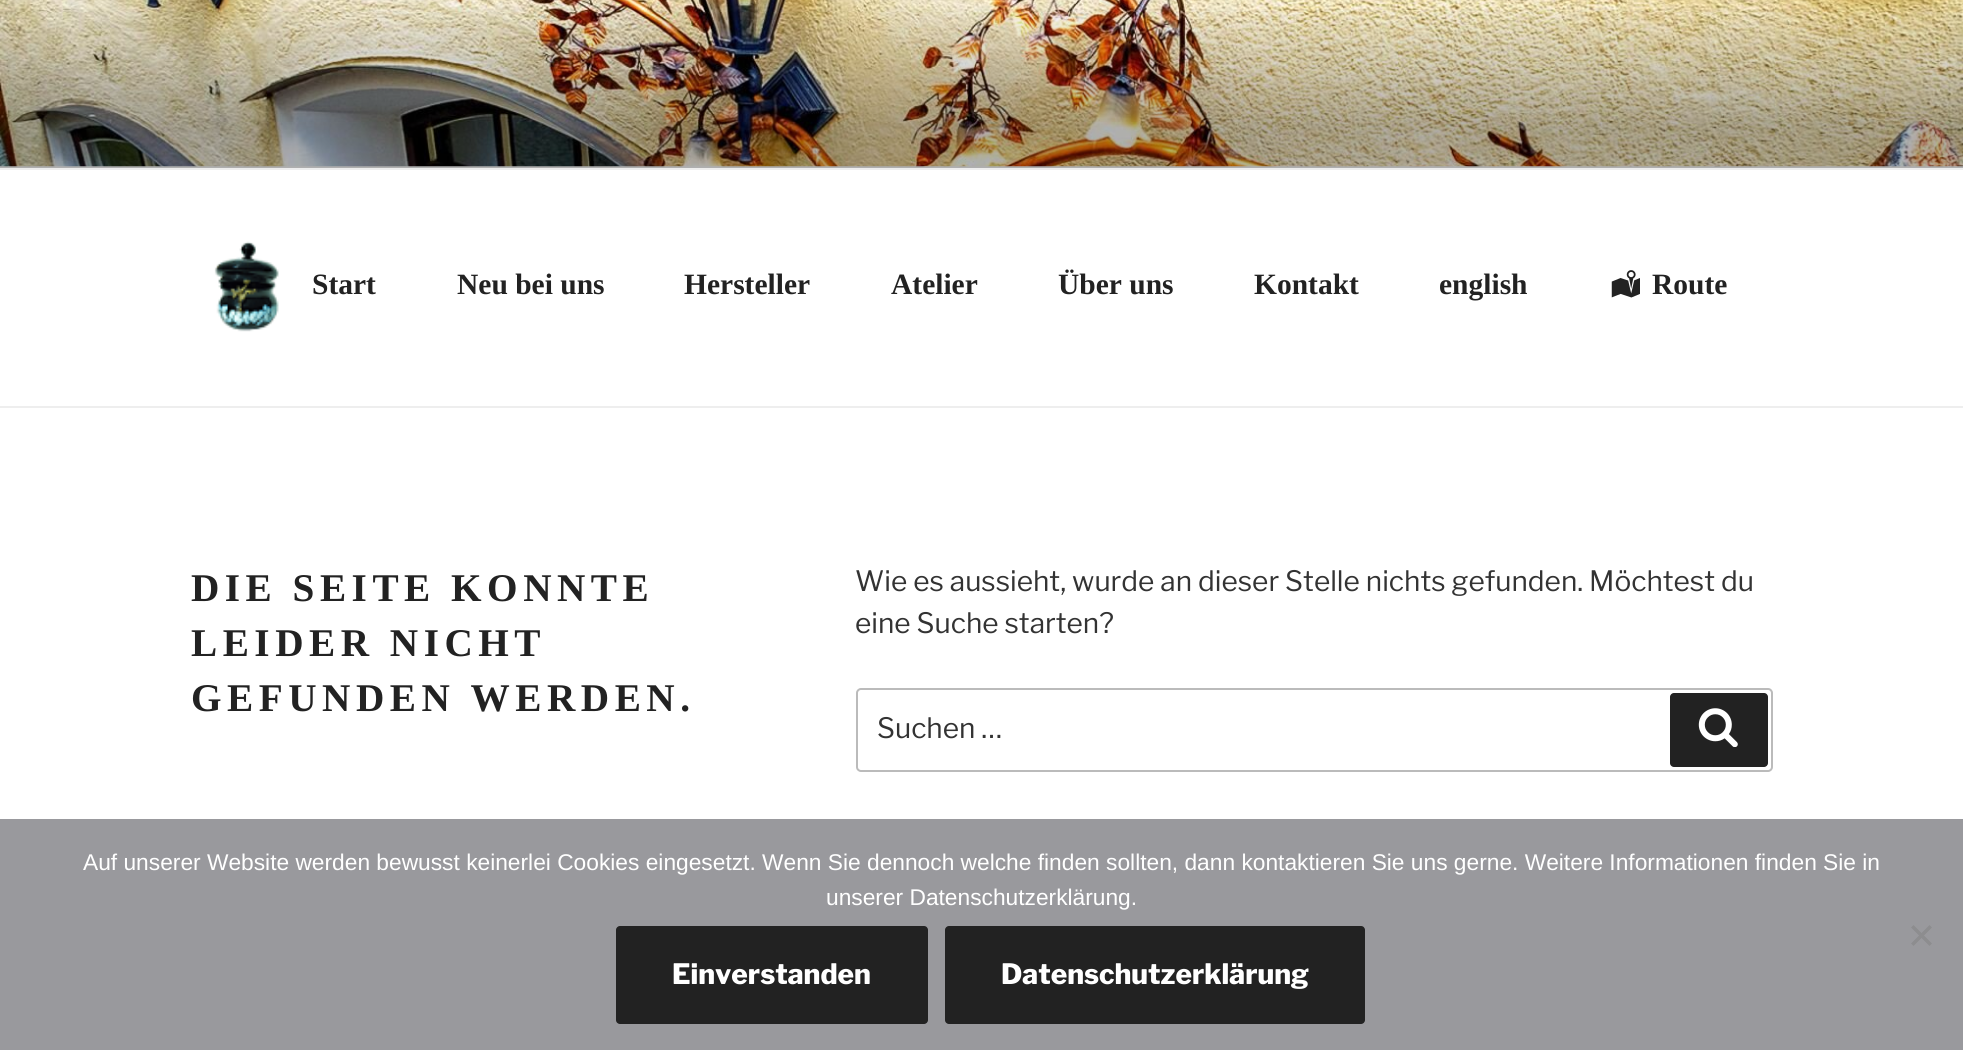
import math
import cairo

surface = cairo.ImageSurface(cairo.FORMAT_RGB24, 1963, 1050)
c = cairo.Context(surface)
options = cairo.FontOptions()
options.set_hint_metrics(cairo.HINT_METRICS_OFF)
options.set_hint_style(cairo.HINT_STYLE_NONE)
c.set_font_options(options)
c.set_miter_limit(4)
def C(code):
 c.set_source_rgb(*(v / 255 for v in bytes.fromhex(code[-6:])))
def F(family, size, italic, bold):
 c.select_font_face(family, cairo.FONT_SLANT_ITALIC if italic else cairo.FONT_SLANT_NORMAL, cairo.FONT_WEIGHT_BOLD if bold else cairo.FONT_WEIGHT_NORMAL)
 c.set_font_size(size)
def T(x, y, s):
 c.move_to(x, y)
 c.show_text(s)
def L(x, y, s, letter, word):
 c.move_to(x, y)
 for ch in s:
  c.show_text(ch)
  c.rel_move_to(letter + word * (ch == ' '), 0)
def R(x, y, w, h):
 c.rectangle(x, y, w, h)
 c.fill()
def Q(x, y, w, h, r):
 c.new_sub_path()
 for i, (u, v) in enumerate([(x + w - r, y + h - r), (x + r, y + h - r), (x + r, y + r), (x + w - r, y + r)]):
  c.arc(u, v, r, i * math.pi / 2, (i + 1) * math.pi / 2)
 c.close_path()
def I(path, x, y, w, h):
 c.save()
 c.set_source_surface(cairo.ImageSurface.create_from_png(path), x, y)
 c.rectangle(x, y, w, h)
 c.fill()
 c.restore()
C('ffffff')
c.paint()
C('fafafa')
R(0,166,1963,2)
I('1.png',0,0,1963,167)
gradient = cairo.LinearGradient(982,0,982,168)
gradient.add_color_stop_rgba(0,0,0,0,0)
gradient.add_color_stop_rgba(.75,0,0,0,.3)
gradient.add_color_stop_rgba(1,0,0,0,.3)
c.set_source(gradient)
R(0,9,1963,159)
C('eeeeee')
R(0,168,1963,2)
R(0,406,1963,2)
I('2.png',214,241,65,91)
F('Liberation Serif',29.5,0,1)
C('222222')
T(312,294,'Start')
T(457,294,'Neu bei uns')
T(684,294,'Hersteller')
T(891,294,'Atelier')
T(1058,294,'Über uns')
T(1254,294,'Kontakt')
T(1439,294,'english')
I('3.png',1611,270,29,28)
T(1652,294,'Route')
F('Liberation Serif',39.25,0,1)
L(191,601,'DIE SEITE KONNTE',5.5,0)
L(191,656,'LEIDER NICHT',5.5,0)
L(191,711,'GEFUNDEN WERDEN.',5.5,0)
F('Libre Franklin',28,0,0)
C('333333')
T(855,591,'Wie es aussieht, wurde an dieser Stelle nichts gefunden. Möchtest du')
T(855,633,'eine Suche starten?')
Q(857,689,915,82,4)
C('bbbbbb')
c.stroke()
C('333333')
T(877,738,'Suchen …')
C('222222')
Q(1670,693,98,74,4)
c.fill()
I('4.png',1698,708,40,39)
C('99999d')
R(0,819,1963,231)
F('Liberation Sans',22.75,0,0)
C('ffffff')
T(83,870,'Auf unserer Website werden bewusst keinerlei Cookies eingesetzt. Wenn Sie dennoch welche finden sollten, dann kontaktieren Sie uns gerne. Weitere Informationen finden Sie in')
T(826,905,'unserer Datenschutzerklärung.')
C('8d8d8f')
c.new_path()
c.move_to(1929.5,925)
c.line_to(1932,927.5)
c.line_to(1913.5,946)
c.line_to(1911,943.5)
c.close_path()
c.fill()
c.new_path()
c.move_to(1911,927.5)
c.line_to(1913.5,925)
c.line_to(1932,943.5)
c.line_to(1929.5,946)
c.close_path()
c.fill()
C('222222')
Q(616,926,312,98,4)
c.fill()
F('Libre Franklin ExtraBold',28,0,0)
C('ffffff')
T(672,984,'Einverstanden')
C('222222')
Q(945,926,420,98,4)
c.fill()
C('ffffff')
T(1001,984,'Datenschutzerklärung')
surface.write_to_png('o.png')
